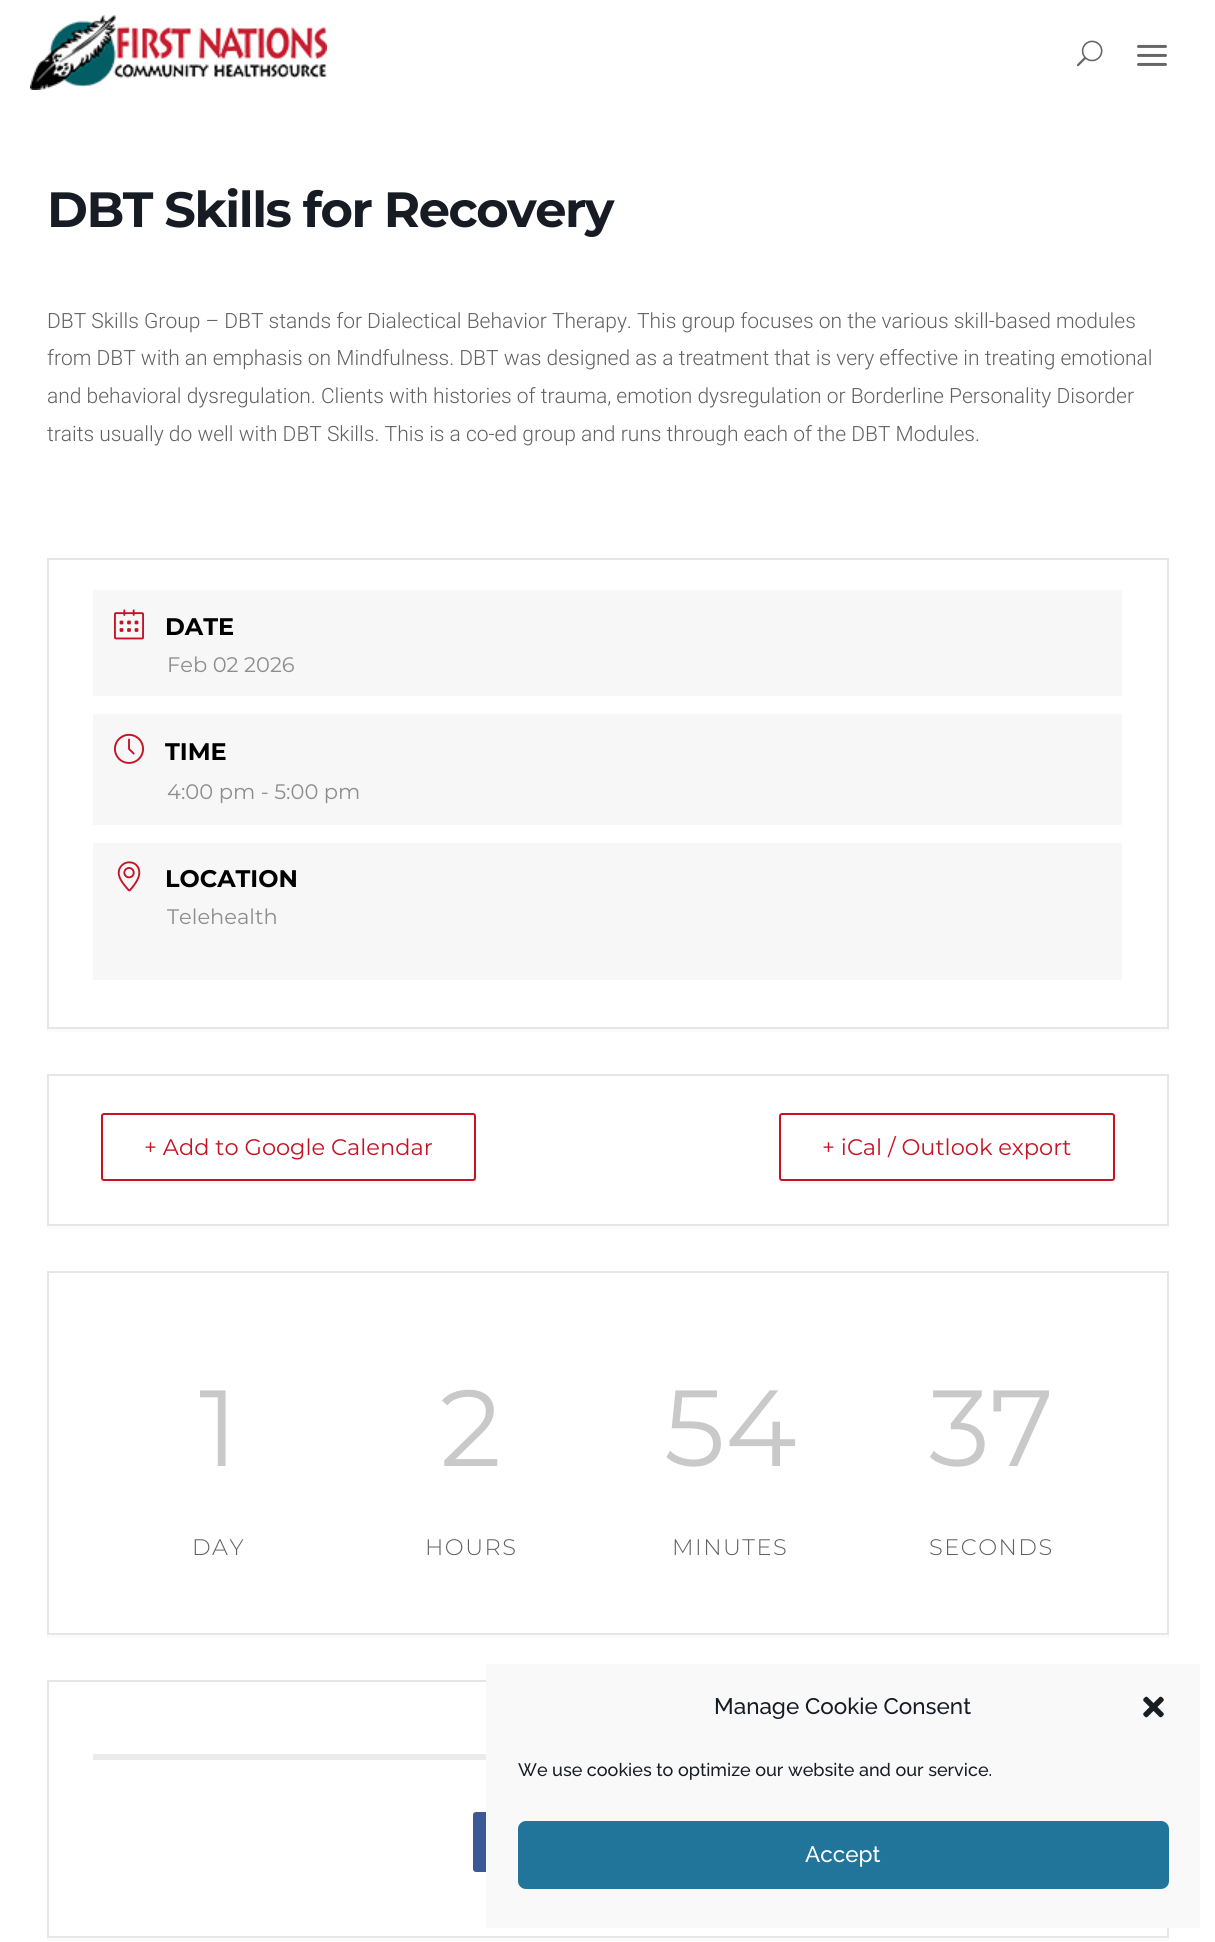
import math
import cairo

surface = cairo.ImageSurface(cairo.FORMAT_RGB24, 1215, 1942)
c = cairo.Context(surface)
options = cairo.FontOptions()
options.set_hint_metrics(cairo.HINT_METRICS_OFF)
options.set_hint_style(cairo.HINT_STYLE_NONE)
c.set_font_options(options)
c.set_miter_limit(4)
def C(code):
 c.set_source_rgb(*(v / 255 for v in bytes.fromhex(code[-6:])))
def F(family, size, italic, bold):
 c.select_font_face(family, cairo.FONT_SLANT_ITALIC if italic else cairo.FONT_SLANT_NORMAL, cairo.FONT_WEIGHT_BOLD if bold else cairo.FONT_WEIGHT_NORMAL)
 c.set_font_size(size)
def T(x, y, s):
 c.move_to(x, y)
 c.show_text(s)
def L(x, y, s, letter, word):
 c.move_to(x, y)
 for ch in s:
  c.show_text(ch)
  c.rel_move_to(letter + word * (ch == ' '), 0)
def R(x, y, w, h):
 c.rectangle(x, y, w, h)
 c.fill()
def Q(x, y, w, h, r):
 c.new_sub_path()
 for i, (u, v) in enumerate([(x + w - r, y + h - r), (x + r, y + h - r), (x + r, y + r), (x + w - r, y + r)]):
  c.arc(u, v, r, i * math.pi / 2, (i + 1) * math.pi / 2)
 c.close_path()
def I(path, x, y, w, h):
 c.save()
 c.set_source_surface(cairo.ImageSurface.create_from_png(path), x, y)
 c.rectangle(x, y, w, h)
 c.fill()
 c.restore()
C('ffffff')
c.paint()
I('1.png',30,15,297,75)
I('2.png',1076,40,27,27)
I('3.png',1137,44,30,22)
F('Montserrat',49.5,0,1)
C('171c24')
L(47,227,'DBT Skills for Recovery',-1.5,0)
F('Roboto Light',21,0,0)
C('616161')
T(47,328,'DBT Skills Group – DBT stands for Dialectical Behavior Therapy. This group focuses on the various skill-based modules')
T(47,365,'from DBT with an emphasis on Mindfulness. DBT was designed as a treatment that is very effective in treating emotional')
T(47,403,'and behavioral dysregulation. Clients with histories of trauma, emotion dysregulation or Borderline Personality Disorder')
T(47,441,'traits usually do well with DBT Skills. This is a co-ed group and runs through each of the DBT Modules.')
C('fbfbfb')
c.new_path()
c.move_to(47,1029)
c.line_to(47,1032)
c.line_to(1169,1032)
c.line_to(1169,561)
c.line_to(1168,561)
c.line_to(1168,1029)
c.close_path()
c.fill()
c.rectangle(48,559,1120,469)
C('e6e6e6')
c.stroke()
C('f7f7f7')
R(93,590,1029,106)
I('4.png',114,609,30,31)
F('Montserrat',24,0,1)
C('000000')
T(165,635,'DATE')
F('Montserrat',21,0,0)
C('8d8d8d')
T(167,672,'Feb 02 2026')
C('f7f7f7')
R(93,714,1029,111)
I('5.png',114,733,30,31)
F('Montserrat',24,0,1)
C('000000')
T(165,760,'TIME')
F('Montserrat',21,0,0)
C('8d8d8d')
T(167,799,'4:00 pm - 5:00 pm')
C('f7f7f7')
R(93,843,1029,137)
I('6.png',117,861,24,31)
F('Montserrat',24,0,1)
C('000000')
T(165,887,'LOCATION')
F('Montserrat',21,0,0)
C('8d8d8d')
T(167,924,'Telehealth')
C('fbfbfb')
c.new_path()
c.move_to(47,1226)
c.line_to(47,1229)
c.line_to(1169,1229)
c.line_to(1169,1077)
c.line_to(1168,1077)
c.line_to(1168,1226)
c.close_path()
c.fill()
c.rectangle(48,1075,1120,150)
C('e6e6e6')
c.stroke()
C('f7f7f7')
c.new_path()
c.move_to(101,1179)
c.line_to(101,1181)
c.curve_to(101,1183,102,1184,104,1184)
c.line_to(473,1184)
c.curve_to(475,1184,476,1183,476,1181)
c.line_to(476,1119)
c.line_to(476,1117)
c.line_to(476,1178)
c.curve_to(476,1179,474,1180,472,1180)
c.line_to(104,1180)
c.curve_to(102,1180,102,1180,101,1179)
c.close_path()
c.fill()
C('ffffff')
Q(102,1114,373,66,2)
c.fill_preserve()
C('c61225')
c.stroke()
F('Montserrat',22.5,0,0)
T(144,1155,'+ Add to Google Calendar')
C('f7f7f7')
c.new_path()
c.move_to(779,1179)
c.line_to(779,1181)
c.curve_to(779,1183,780,1184,782,1184)
c.line_to(1112,1184)
c.curve_to(1114,1184,1115,1183,1115,1181)
c.line_to(1115,1119)
c.line_to(1114,1117)
c.line_to(1114,1178)
c.curve_to(1114,1179,1113,1180,1112,1180)
c.line_to(782,1180)
c.curve_to(780,1180,780,1180,779,1179)
c.close_path()
c.fill()
C('ffffff')
Q(780,1114,334,66,2)
c.fill_preserve()
C('c61225')
c.stroke()
T(822,1155,'+ iCal / Outlook export')
C('fbfbfb')
c.new_path()
c.move_to(47,1635)
c.line_to(47,1638)
c.line_to(1169,1638)
c.line_to(1169,1274)
c.line_to(1168,1274)
c.line_to(1168,1635)
c.close_path()
c.fill()
c.rectangle(48,1272,1120,362)
C('e6e6e6')
c.stroke()
F('Montserrat',108,0,0)
C('c9c9c9')
T(199,1466,'1')
F('Montserrat Light',22.5,0,0)
C('616161')
L(192,1555,'DAY',1.5,0)
F('Montserrat',108,0,0)
C('c9c9c9')
T(440,1466,'2')
F('Montserrat Light',22.5,0,0)
C('616161')
L(425,1555,'HOURS',1.5,0)
F('Montserrat',108,0,0)
C('c9c9c9')
T(664,1466,'54')
F('Montserrat Light',22.5,0,0)
C('616161')
L(672,1555,'MINUTES',1.5,0)
F('Montserrat',108,0,0)
C('c9c9c9')
T(929,1466,'37')
F('Montserrat Light',22.5,0,0)
C('616161')
L(929,1555,'SECONDS',1.5,0)
C('fbfbfb')
c.new_path()
c.move_to(47,1938)
c.line_to(47,1941)
c.line_to(1169,1941)
c.line_to(1169,1683)
c.line_to(1168,1683)
c.line_to(1168,1938)
c.close_path()
c.fill()
c.rectangle(48,1681,1120,256)
C('e6e6e6')
c.stroke()
C('ebebeb')
R(93,1754,393,6)
C('3b5996')
Q(473,1812,60,60,3)
c.fill()
C('f9f9f9')
R(486,1664,714,264)
F('Raleway Thin',22.5,0,0)
C('171c24')
T(714,1714,'Manage Cookie Consent')
I('7.png',1143,1696,21,22)
F('Raleway Thin',18,0,0)
T(518,1776,'We use cookies to optimize our website and our service.')
C('21759b')
Q(519,1822,649,66,7)
c.fill_preserve()
c.stroke()
F('Raleway Thin',22.5,0,0)
C('ffffff')
T(805,1862,'Accept')
surface.write_to_png('o.png')
